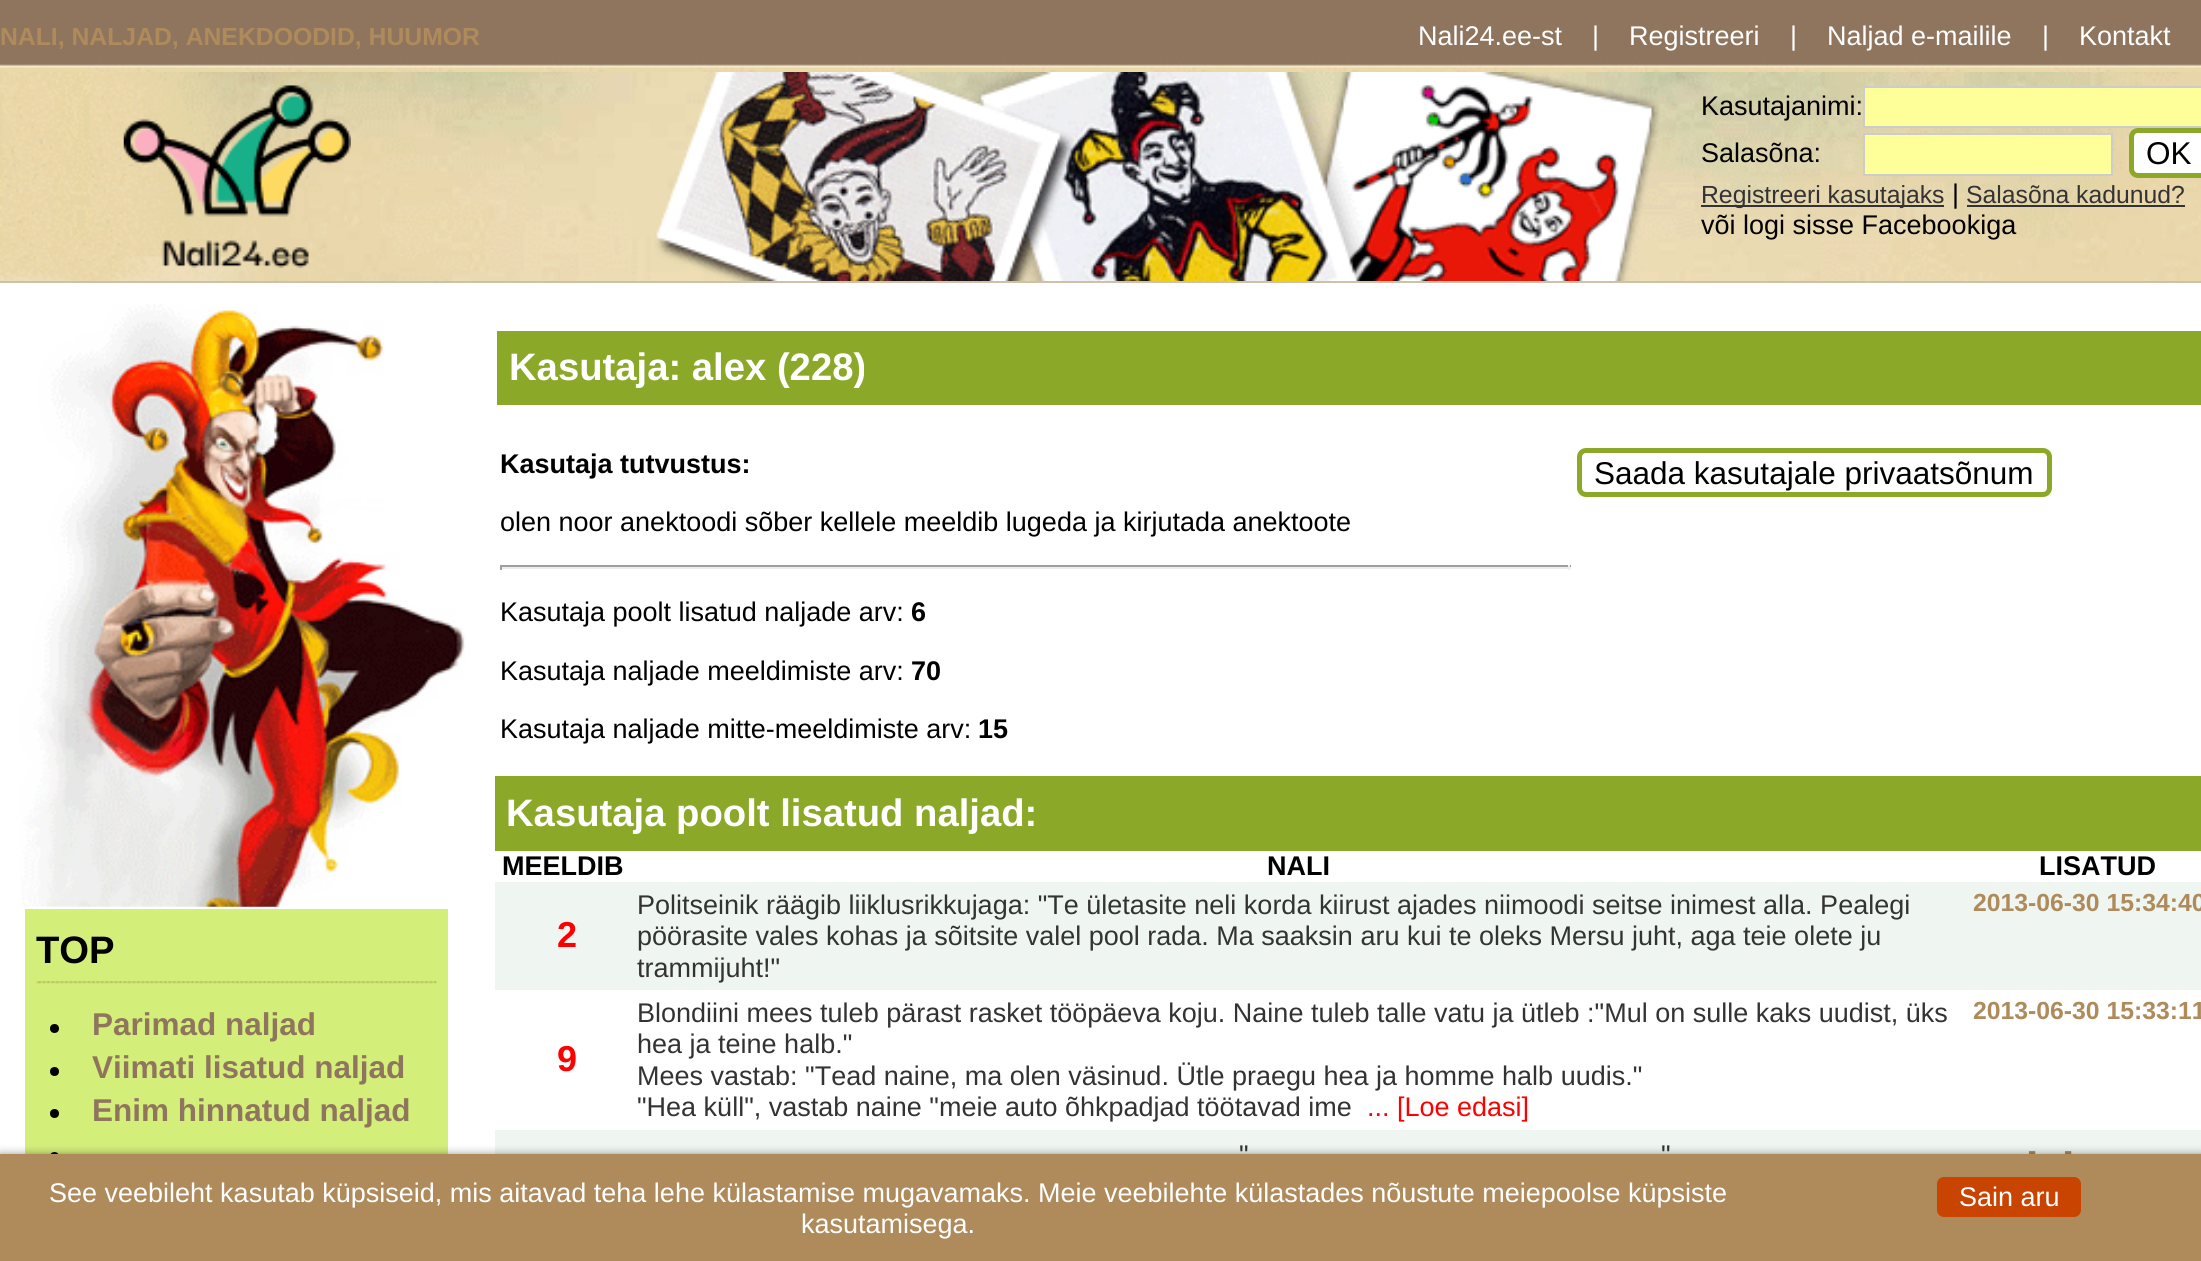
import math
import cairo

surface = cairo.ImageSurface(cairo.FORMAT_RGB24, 2201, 1261)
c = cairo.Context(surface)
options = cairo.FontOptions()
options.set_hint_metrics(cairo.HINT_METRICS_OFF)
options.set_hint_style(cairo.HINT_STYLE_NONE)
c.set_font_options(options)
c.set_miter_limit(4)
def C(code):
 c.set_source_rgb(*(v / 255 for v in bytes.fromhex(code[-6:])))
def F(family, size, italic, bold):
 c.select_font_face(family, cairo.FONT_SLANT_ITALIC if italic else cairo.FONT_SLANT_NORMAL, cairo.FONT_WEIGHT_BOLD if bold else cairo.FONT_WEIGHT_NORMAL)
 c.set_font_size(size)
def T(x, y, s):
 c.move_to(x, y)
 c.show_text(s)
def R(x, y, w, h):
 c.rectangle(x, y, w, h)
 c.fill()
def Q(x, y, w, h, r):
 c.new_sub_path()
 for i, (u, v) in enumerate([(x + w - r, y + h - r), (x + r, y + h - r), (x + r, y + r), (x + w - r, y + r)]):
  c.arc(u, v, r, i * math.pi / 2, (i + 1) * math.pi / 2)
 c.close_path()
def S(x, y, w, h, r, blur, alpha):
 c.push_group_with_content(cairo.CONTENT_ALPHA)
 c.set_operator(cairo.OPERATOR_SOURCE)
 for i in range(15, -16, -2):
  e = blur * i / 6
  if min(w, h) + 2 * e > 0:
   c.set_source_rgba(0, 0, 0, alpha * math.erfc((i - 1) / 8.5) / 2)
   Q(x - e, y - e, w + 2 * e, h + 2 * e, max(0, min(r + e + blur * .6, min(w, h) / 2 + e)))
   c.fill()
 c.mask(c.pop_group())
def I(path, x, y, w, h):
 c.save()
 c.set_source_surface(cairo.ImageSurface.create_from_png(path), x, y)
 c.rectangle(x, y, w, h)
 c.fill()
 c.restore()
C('ffffff')
c.paint()
I('1.png',0,0,2201,72)
F('Liberation Sans',24.75,0,1)
C('af8a5b')
T(0,45,'NALI, NALJAD, ANEKDOODID, HUUMOR')
F('Liberation Sans',27,0,0)
C('ffffff')
T(1418,45,'Nali24.ee-st')
T(1592,45,'|')
T(1629,45,'Registreeri')
T(1790,45,'|')
T(1827,45,'Naljad e-mailile')
T(2042,45,'|')
T(2079,45,'Kontakt')
I('2.png',0,72,2201,209)
I('3.png',123,85,228,183)
C('000000')
T(1701,115,'Kasutajanimi:')
C('ffff99')
c.rectangle(1864,87,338,40)
c.fill_preserve()
C('cccccc')
c.stroke()
C('000000')
T(1701,162,'Salasõna:')
C('ffff99')
c.rectangle(1864,134,248,41)
c.fill_preserve()
C('cccccc')
c.stroke()
C('ffffff')
Q(2131.5,130.5,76,45,6.5)
c.fill_preserve()
C('8ca829')
c.set_line_width(5)
c.stroke()
F('Liberation Sans',31.5,0,0)
C('000000')
T(2146,164,'OK')
C('333333')
R(1701,205,243,2)
F('Liberation Sans',24.75,0,0)
T(1701,203,'Registreeri kasutajaks')
F('Liberation Sans',27,0,0)
C('000000')
T(1952,203,'|')
F('Liberation Sans',24.75,0,0)
C('333333')
T(1966,203,'Salasõna kadunud?')
R(1967,205,218,2)
F('Liberation Sans',27,0,0)
C('000000')
T(1701,234,'või logi sisse Facebookiga')
C('ccc2aa')
R(0,281,2201,2)
I('4.png',20,304,446,603)
C('d4ee7a')
R(25,909,423,245)
F('Liberation Sans',38.25,0,1)
C('000000')
T(36,963,'TOP')
I('5.png',36,981,401,3)
I('6.png',36,981,5,3)
c.arc(54.5,1028.5,4.5,0,2 * math.pi)
c.fill()
F('Liberation Sans',31.5,0,1)
C('8f755e')
T(92,1035,'Parimad naljad')
C('000000')
c.new_path()
c.arc(54.5,1071.5,4.5,0,2 * math.pi)
c.fill()
C('8f755e')
T(92,1078,'Viimati lisatud naljad')
C('000000')
c.new_path()
c.arc(54.5,1113.5,4.5,0,2 * math.pi)
c.fill()
C('8f755e')
T(92,1121,'Enim hinnatud naljad')
C('000000')
c.new_path()
c.arc(54.5,1156.5,4.5,0,2 * math.pi)
c.fill()
C('8ca829')
R(497,331,1704,74)
F('Liberation Sans',38.25,0,1)
C('ffffff')
T(509,380,'Kasutaja: alex (228)')
F('Liberation Sans',27,0,1)
C('000000')
T(500,473,'Kasutaja tutvustus:')
F('Liberation Sans',27,0,0)
T(500,531,'olen noor anektoodi sõber kellele meeldib lugeda ja kirjutada anektoote')
C('9f9f9f')
R(500,565,1071,2)
C('eeeeee')
R(1568,565,2,5)
R(500,567,1071,2)
C('9f9f9f')
R(500,565,2,5)
C('000000')
T(500,621,'Kasutaja poolt lisatud naljade arv:')
F('Liberation Sans',27,0,1)
T(911,621,'6')
F('Liberation Sans',27,0,0)
T(500,680,'Kasutaja naljade meeldimiste arv:')
F('Liberation Sans',27,0,1)
T(911,680,'70')
F('Liberation Sans',27,0,0)
T(500,738,'Kasutaja naljade mitte-meeldimiste arv:')
F('Liberation Sans',27,0,1)
T(978,738,'15')
Q(1579.5,450.5,470,44,6.5)
C('8ca829')
c.stroke()
F('Liberation Sans',31.5,0,0)
C('000000')
T(1594,484,'Saada kasutajale privaatsõnum')
C('8ca829')
R(495,776,1706,75)
F('Liberation Sans',38.25,0,1)
C('ffffff')
T(506,826,'Kasutaja poolt lisatud naljad:')
F('Liberation Sans',27,0,1)
C('000000')
T(502,875,'MEELDIB')
T(1267,875,'NALI')
T(2039,875,'LISATUD')
C('eff6f1')
R(495,882,1706,108)
F('Liberation Sans',36,0,1)
C('ff0000')
T(557,947,'2')
F('Liberation Sans',27,0,0)
C('333333')
T(637,914,'Politseinik räägib liiklusrikkujaga: "Te ületasite neli korda kiirust ajades niimoodi seitse inimest alla. Pealegi')
T(637,945,'pöörasite vales kohas ja sõitsite valel pool rada. Ma saaksin aru kui te oleks Mersu juht, aga teie olete ju')
T(637,977,'trammijuht!"')
F('Liberation Sans',24.75,0,1)
C('af8a5b')
T(1973,911,'2013-06-30 15:34:40')
F('Liberation Sans',36,0,1)
C('ff0000')
T(557,1071,'9')
F('Liberation Sans',27,0,0)
C('333333')
T(637,1022,'Blondiini mees tuleb pärast rasket tööpäeva koju. Naine tuleb talle vatu ja ütleb :"Mul on sulle kaks uudist, üks')
T(637,1053,'hea ja teine halb."')
T(637,1085,'Mees vastab: "Tead naine, ma olen väsinud. Ütle praegu hea ja homme halb uudis."')
T(637,1116,'"Hea küll", vastab naine "meie auto õhkpadjad töötavad ime')
C('ff0000')
T(1367,1116,'... [Loe edasi]')
F('Liberation Sans',24.75,0,1)
C('af8a5b')
T(1973,1019,'2013-06-30 15:33:11')
C('eff6f1')
R(495,1130,1706,24)
F('Liberation Sans',27,0,0)
C('333333')
T(1239,1164,'"')
T(1661,1164,'"')
F('Liberation Sans',24.75,0,1)
C('af8a5b')
T(2028,1159,'-')
T(2064,1159,'-')
C('000000')
S(0,1154,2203,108,0,4.5,.4)
C('af8a5b')
R(0,1154,2201,107)
F('Liberation Sans',27,0,0)
C('ffffff')
T(49,1202,'See veebileht kasutab küpsiseid, mis aitavad teha lehe külastamise mugavamaks. Meie veebilehte külastades nõustute meiepoolse küpsiste')
T(801,1233,'kasutamisega.')
C('c84400')
Q(1937,1177,144,40,7)
c.fill()
C('ffffff')
T(1959,1206,'Sain aru')
surface.write_to_png('o.png')
